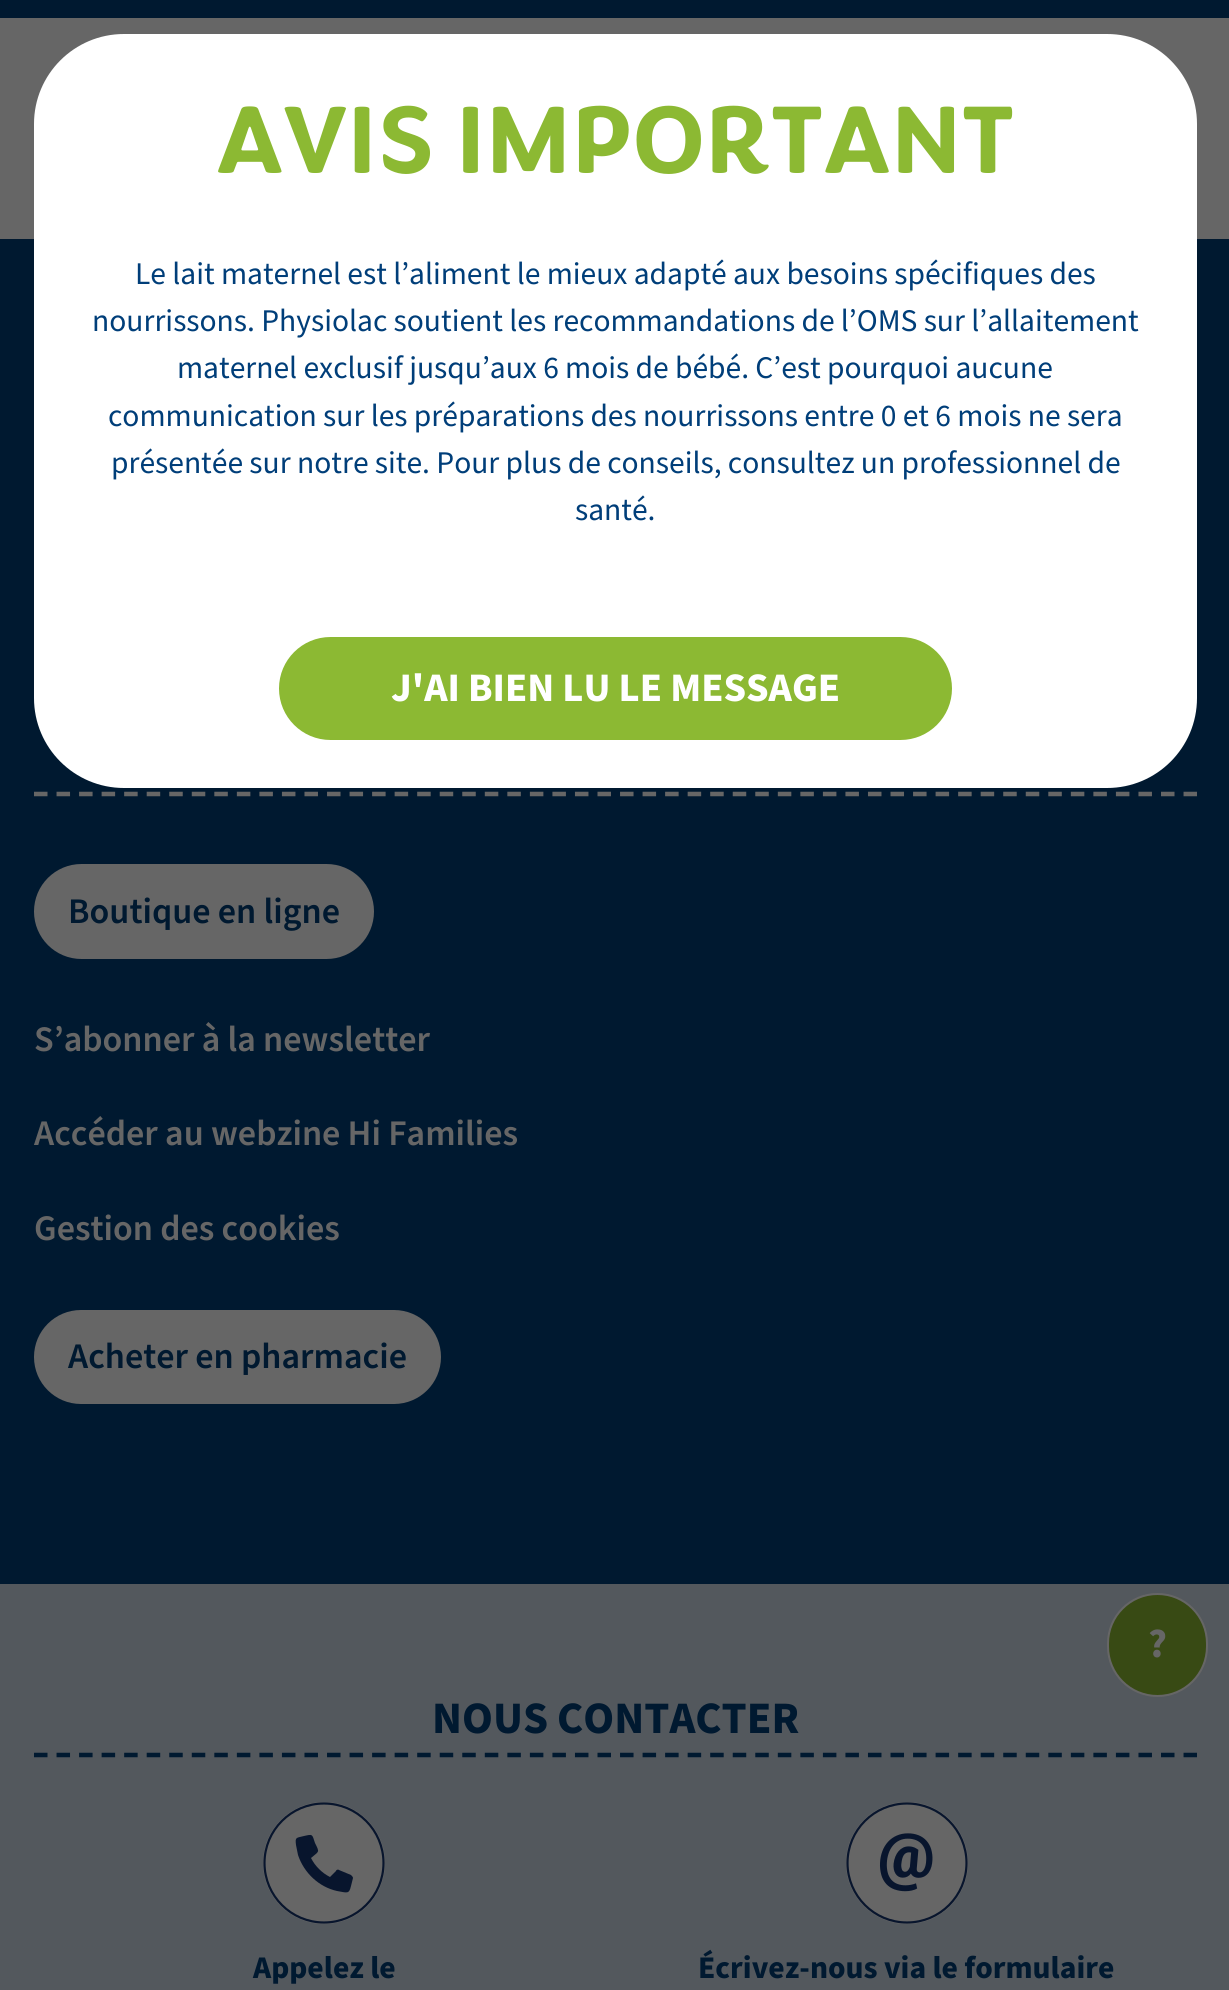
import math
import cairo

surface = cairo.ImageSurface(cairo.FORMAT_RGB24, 1229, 1990)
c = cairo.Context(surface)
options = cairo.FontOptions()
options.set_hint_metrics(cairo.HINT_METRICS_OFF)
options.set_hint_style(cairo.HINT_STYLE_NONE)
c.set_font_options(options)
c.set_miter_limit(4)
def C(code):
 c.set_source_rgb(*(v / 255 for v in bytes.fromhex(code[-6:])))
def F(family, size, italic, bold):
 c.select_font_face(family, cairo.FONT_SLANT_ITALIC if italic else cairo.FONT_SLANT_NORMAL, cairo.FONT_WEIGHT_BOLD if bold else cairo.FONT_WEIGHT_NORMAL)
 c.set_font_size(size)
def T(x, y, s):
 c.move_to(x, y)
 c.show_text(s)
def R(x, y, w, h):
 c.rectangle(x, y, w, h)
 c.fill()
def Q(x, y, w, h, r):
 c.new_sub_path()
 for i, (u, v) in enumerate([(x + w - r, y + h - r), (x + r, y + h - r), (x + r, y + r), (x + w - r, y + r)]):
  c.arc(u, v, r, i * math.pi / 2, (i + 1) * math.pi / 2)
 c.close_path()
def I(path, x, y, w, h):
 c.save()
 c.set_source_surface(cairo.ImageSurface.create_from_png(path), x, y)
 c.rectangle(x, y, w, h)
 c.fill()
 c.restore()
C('001930')
c.paint()
C('666666')
R(0,18,1229,221)
C('ffffff')
Q(34,34,1163,754,90)
c.fill()
F('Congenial',99,0,1)
C('8cb933')
T(216,173,'AVIS IMPORTANT')
F('Source Sans Pro',31.5,0,0)
C('003e79')
T(135,284,'Le lait maternel est l’aliment le mieux adapté aux besoins spécifiques des')
T(92,331,'nourrissons. Physiolac soutient les recommandations de l’OMS sur l’allaitement')
T(177,378,'maternel exclusif jusqu’aux 6 mois de bébé. C’est pourquoi aucune')
T(108,426,'communication sur les préparations des nourrissons entre 0 et 6 mois ne sera')
T(111,473,'présentée sur notre site. Pour plus de conseils, consultez un professionnel de')
T(575,520,'santé.')
C('8cb933')
Q(279,637,673,103,51.5)
c.fill()
F('Source Sans Pro',40.5,0,1)
C('ffffff')
T(391,701,'J\'AI BIEN LU LE MESSAGE')
c.new_path()
c.move_to(34,794)
c.line_to(1197,794)
C('666666')
c.set_line_width(4.5)
c.set_dash([13.5,9.04])
c.stroke()
Q(34,864,340,95,47.5)
c.fill()
F('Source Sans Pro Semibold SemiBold',36,0,0)
C('001930')
T(68,923,'Boutique en ligne')
C('666666')
T(34,1051,'S’abonner à la newsletter')
T(34,1145,'Accéder au webzine Hi Families')
T(34,1240,'Gestion des cookies')
Q(34,1310,407,94,47)
c.fill()
C('001930')
T(68,1368,'Acheter en pharmacie')
C('53585d')
R(0,1584,1229,406)
c.new_path()
c.move_to(34,1755)
c.line_to(1197,1755)
C('001930')
c.stroke()
F('Source Sans Pro',45,0,1)
T(432,1733,'NOUS CONTACTER')
C('666666')
c.new_path()
c.arc(324,1863,61,0,2 * math.pi)
c.fill()
c.arc(324,1863,59.5,0,2 * math.pi)
C('08152d')
c.set_line_width(2.2)
c.set_dash([])
c.stroke()
c.new_path()
c.move_to(351,1875)
c.line_to(339,1870)
c.curve_to(338,1869,336,1870,336,1871)
c.line_to(330,1877)
c.curve_to(322,1873,315,1866,311,1858)
c.curve_to(319,1851,320,1853,315,1843)
c.curve_to(312,1834,313,1834,304,1836)
c.curve_to(296,1838,295,1837,296,1845)
c.line_to(298,1855)
c.curve_to(304,1873,319,1887,337,1891)
c.curve_to(348,1893,349,1894,351,1886)
c.line_to(353,1878)
c.curve_to(353,1877,352,1876,351,1875)
c.close_path()
c.fill()
F('Source Sans Pro',31.5,0,1)
C('001930')
T(253,1978,'Appelez le')
I('1.png',846,1802,122,122)
T(698,1978,'Écrivez-nous via le formulaire')
C('384a14')
Q(1108,1594,99,102,49.5)
c.fill_preserve()
C('666666')
c.set_line_width(2)
c.stroke()
F('Source Sans Pro',40.5,0,1)
T(1148,1657,'?')
surface.write_to_png('o.png')
